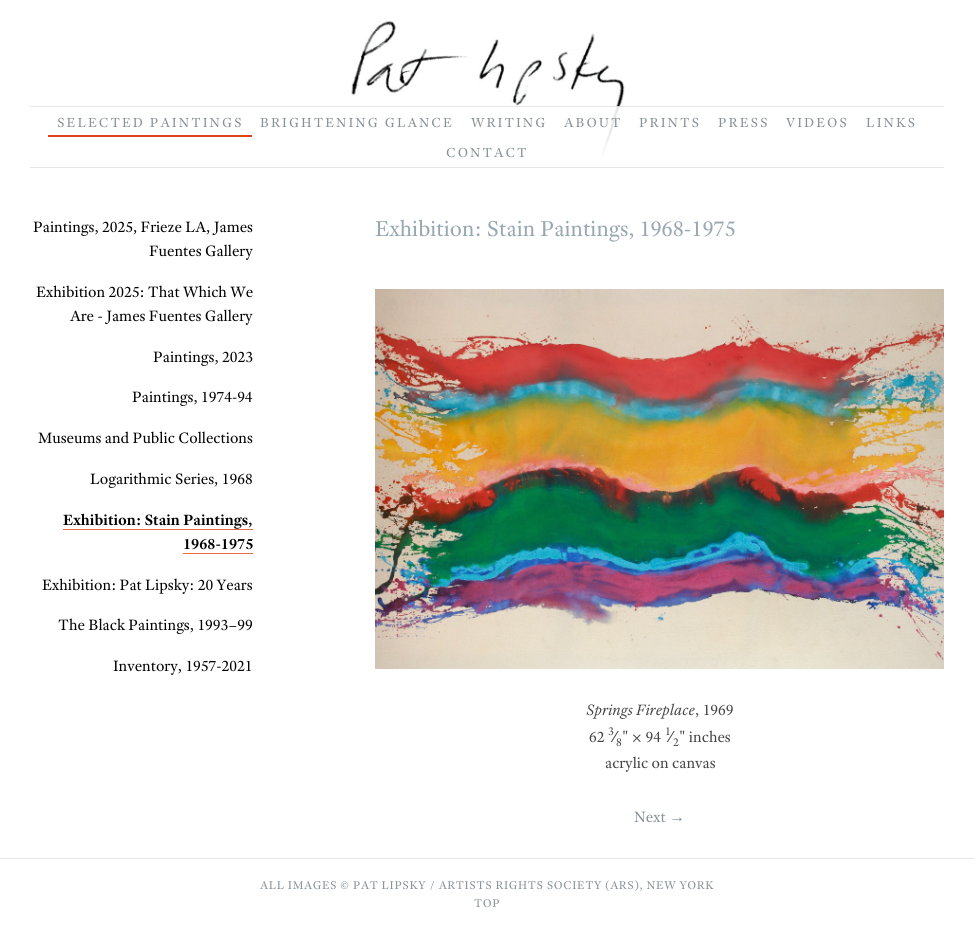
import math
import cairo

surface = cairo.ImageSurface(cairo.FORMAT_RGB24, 974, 944)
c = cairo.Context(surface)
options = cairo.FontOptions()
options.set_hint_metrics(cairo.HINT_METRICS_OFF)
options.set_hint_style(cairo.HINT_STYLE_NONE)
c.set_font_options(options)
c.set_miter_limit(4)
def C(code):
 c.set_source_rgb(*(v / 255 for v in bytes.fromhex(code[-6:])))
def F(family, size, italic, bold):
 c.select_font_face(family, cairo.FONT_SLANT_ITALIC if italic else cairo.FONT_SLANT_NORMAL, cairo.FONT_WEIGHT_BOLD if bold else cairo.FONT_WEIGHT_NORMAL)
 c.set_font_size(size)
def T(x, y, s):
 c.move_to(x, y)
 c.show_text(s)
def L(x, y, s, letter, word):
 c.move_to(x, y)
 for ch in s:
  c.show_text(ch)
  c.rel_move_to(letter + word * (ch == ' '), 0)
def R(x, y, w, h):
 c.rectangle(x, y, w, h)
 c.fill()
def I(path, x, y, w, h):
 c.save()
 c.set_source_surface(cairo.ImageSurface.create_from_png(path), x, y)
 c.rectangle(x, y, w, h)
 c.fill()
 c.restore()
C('ffffff')
c.paint()
I('1.png',351,20,275,143)
c.set_source_rgba(1,1,1,0.9)
R(484,106,137,57)
c.set_source_rgba(0,0,0,0.1)
R(30,106,914,1)
C('e6e6e6')
R(30,167,914,1)
F('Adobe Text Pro',14,0,0)
C('869198')
L(57,127,'SELECTED PAINTINGS',2,0)
C('e04215')
R(48,135,204,2)
C('869198')
L(260,127,'BRIGHTENING GLANCE',2,0)
L(471,127,'WRITING',2,0)
L(564,127,'ABOUT',2,0)
L(639,127,'PRINTS',2,0)
L(718,127,'PRESS',2,0)
L(786,127,'VIDEOS',2,0)
L(866,127,'LINKS',2,0)
L(446,157,'CONTACT',2,0)
F('Adobe Text Pro',16,0,0)
C('000000')
T(33,232,'Paintings, 2025, Frieze LA, James')
T(149,256,'Fuentes Gallery')
T(36,297,'Exhibition 2025: That Which We')
T(70,321,'Are - James Fuentes Gallery')
T(153,362,'Paintings, 2023')
T(132,402,'Paintings, 1974-94')
T(38,443,'Museums and Public Collections')
T(90,484,'Logarithmic Series, 1968')
F('Adobe Text Pro',16,0,1)
T(63,525,'Exhibition: Stain Paintings,')
C('e66844')
R(63,529,190,1)
C('000000')
T(183,549,'1968-1975')
C('e66844')
R(183,553,70,1)
F('Adobe Text Pro',16,0,0)
C('000000')
T(42,590,'Exhibition: Pat Lipsky: 20 Years')
T(58,630,'The Black Paintings, 1993–99')
T(113,671,'Inventory, 1957-2021')
F('Adobe Text Pro',23,0,0)
C('98a8b3')
T(375,236,'Exhibition: Stain Paintings, 1968-1975')
I('2.png',375,289,569,380)
F('Adobe Text Pro',16,1,0)
C('454545')
T(586,715,'Springs Fireplace')
F('Adobe Text Pro',16,0,0)
T(695,715,', 1969')
T(589,742,'62')
F('Adobe Text Pro',12,0,0)
T(608,735,'3')
F('Adobe Text Pro',16,0,0)
T(622,742,'" × 94')
F('Adobe Text Pro',12,0,0)
T(665,735,'1')
F('Adobe Text Pro',16,0,0)
T(679,742,'" inches')
F('Liberation Sans',16,0,0)
T(614,742,'⁄')
F('Adobe Text Pro',12,0,0)
T(616,746,'8')
F('Liberation Sans',16,0,0)
T(670,742,'⁄')
F('Adobe Text Pro',12,0,0)
T(673,746,'2')
F('Adobe Text Pro',16,0,0)
T(605,768,'acrylic on canvas')
C('869198')
T(634,822,'Next')
F('Liberation Sans',16,0,0)
T(669,822,'→')
C('e6e6e6')
R(0,858,974,1)
F('Adobe Text Pro',12,0,0)
C('869198')
L(260,889,'ALL IMAGES © PAT LIPSKY / ARTISTS RIGHTS SOCIETY (ARS), NEW YORK',.6,0)
L(474,907,'TOP',.6,0)
surface.write_to_png('o.png')
